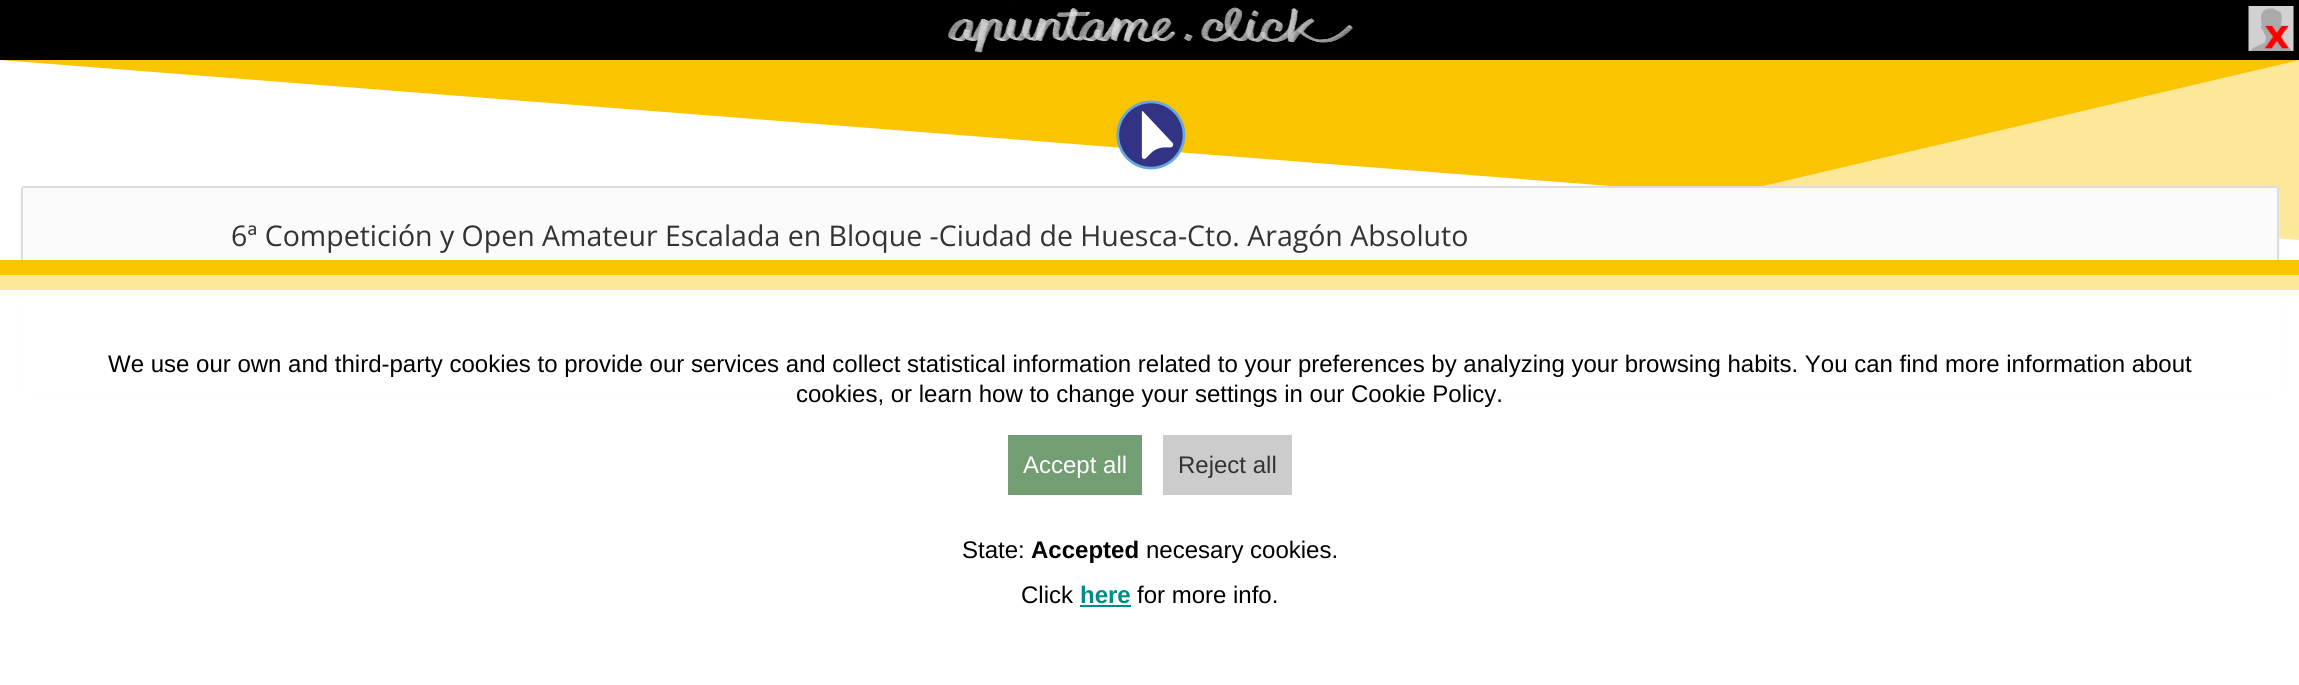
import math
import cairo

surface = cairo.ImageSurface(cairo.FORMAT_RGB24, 2299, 685)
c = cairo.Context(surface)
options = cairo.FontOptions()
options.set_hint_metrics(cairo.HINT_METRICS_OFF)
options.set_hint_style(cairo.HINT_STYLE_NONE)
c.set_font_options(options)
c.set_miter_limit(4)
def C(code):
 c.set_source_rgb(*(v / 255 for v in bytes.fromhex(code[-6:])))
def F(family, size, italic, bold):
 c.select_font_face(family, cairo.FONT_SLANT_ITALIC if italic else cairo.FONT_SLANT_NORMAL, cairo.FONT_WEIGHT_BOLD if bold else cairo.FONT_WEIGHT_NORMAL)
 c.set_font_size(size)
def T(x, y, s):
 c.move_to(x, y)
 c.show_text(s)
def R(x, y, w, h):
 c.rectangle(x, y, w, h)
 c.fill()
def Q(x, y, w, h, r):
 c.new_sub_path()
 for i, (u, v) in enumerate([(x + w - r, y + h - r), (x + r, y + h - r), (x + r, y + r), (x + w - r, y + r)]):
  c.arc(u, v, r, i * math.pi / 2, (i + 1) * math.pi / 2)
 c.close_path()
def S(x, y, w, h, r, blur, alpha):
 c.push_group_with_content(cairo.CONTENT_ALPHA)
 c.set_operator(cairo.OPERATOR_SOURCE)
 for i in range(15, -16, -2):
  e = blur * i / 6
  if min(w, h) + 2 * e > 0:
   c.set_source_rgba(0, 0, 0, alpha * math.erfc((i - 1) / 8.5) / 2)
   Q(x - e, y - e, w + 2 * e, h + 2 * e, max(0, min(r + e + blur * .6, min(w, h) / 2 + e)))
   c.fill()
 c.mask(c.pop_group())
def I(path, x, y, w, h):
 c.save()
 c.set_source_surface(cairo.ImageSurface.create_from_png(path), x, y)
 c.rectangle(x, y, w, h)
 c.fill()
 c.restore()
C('ffffff')
c.paint()
C('000000')
R(0,0,2299,60)
I('1.png',948,7,405,46)
I('2.png',2248,6,46,45)
C('fac400')
c.new_path()
c.move_to(0,60)
c.line_to(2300,60)
c.line_to(1725,195)
c.close_path()
c.fill()
I('3.png',1116,100,70,70)
c.set_source_rgba(0.98,0.769,0,0.4)
c.new_path()
c.move_to(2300,60)
c.line_to(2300,240)
c.line_to(1725,195)
c.close_path()
c.fill()
C('ececec')
S(21,188,2258,210,3,1,1)
C('fbfbfb')
Q(22,187,2256,208,2)
c.fill_preserve()
C('dddddd')
c.stroke()
F('Open Sans',28.5,0,0)
C('333333')
T(231,246,'6ª Competición y Open Amateur Escalada en Bloque -Ciudad de Huesca-Cto. Aragón Absoluto')
C('ffffff')
R(20,290,2260,109)
C('fde799')
R(0,275,2299,15)
C('fac400')
R(0,260,2299,15)
F('Liberation Sans',24,0,0)
C('000000')
T(108,372,'We use our own and third-party cookies to provide our services and collect statistical information related to your preferences by analyzing your browsing habits. You can find more information about')
T(796,402,'cookies, or learn how to change your settings in our Cookie Policy.')
C('739e73')
R(1008,435,134,60)
C('ffffff')
T(1023,473,'Accept all')
C('cccccc')
R(1163,435,129,60)
C('333333')
T(1178,473,'Reject all')
C('000000')
T(962,558,'State:')
F('Liberation Sans',24,0,1)
T(1031,558,'Accepted')
F('Liberation Sans',24,0,0)
T(1146,558,'necesary cookies.')
T(1021,603,'Click')
F('Liberation Sans',24,0,1)
C('008b8b')
T(1080,603,'here')
R(1080,605,51,2)
F('Liberation Sans',24,0,0)
C('000000')
T(1137,603,'for more info.')
surface.write_to_png('o.png')
